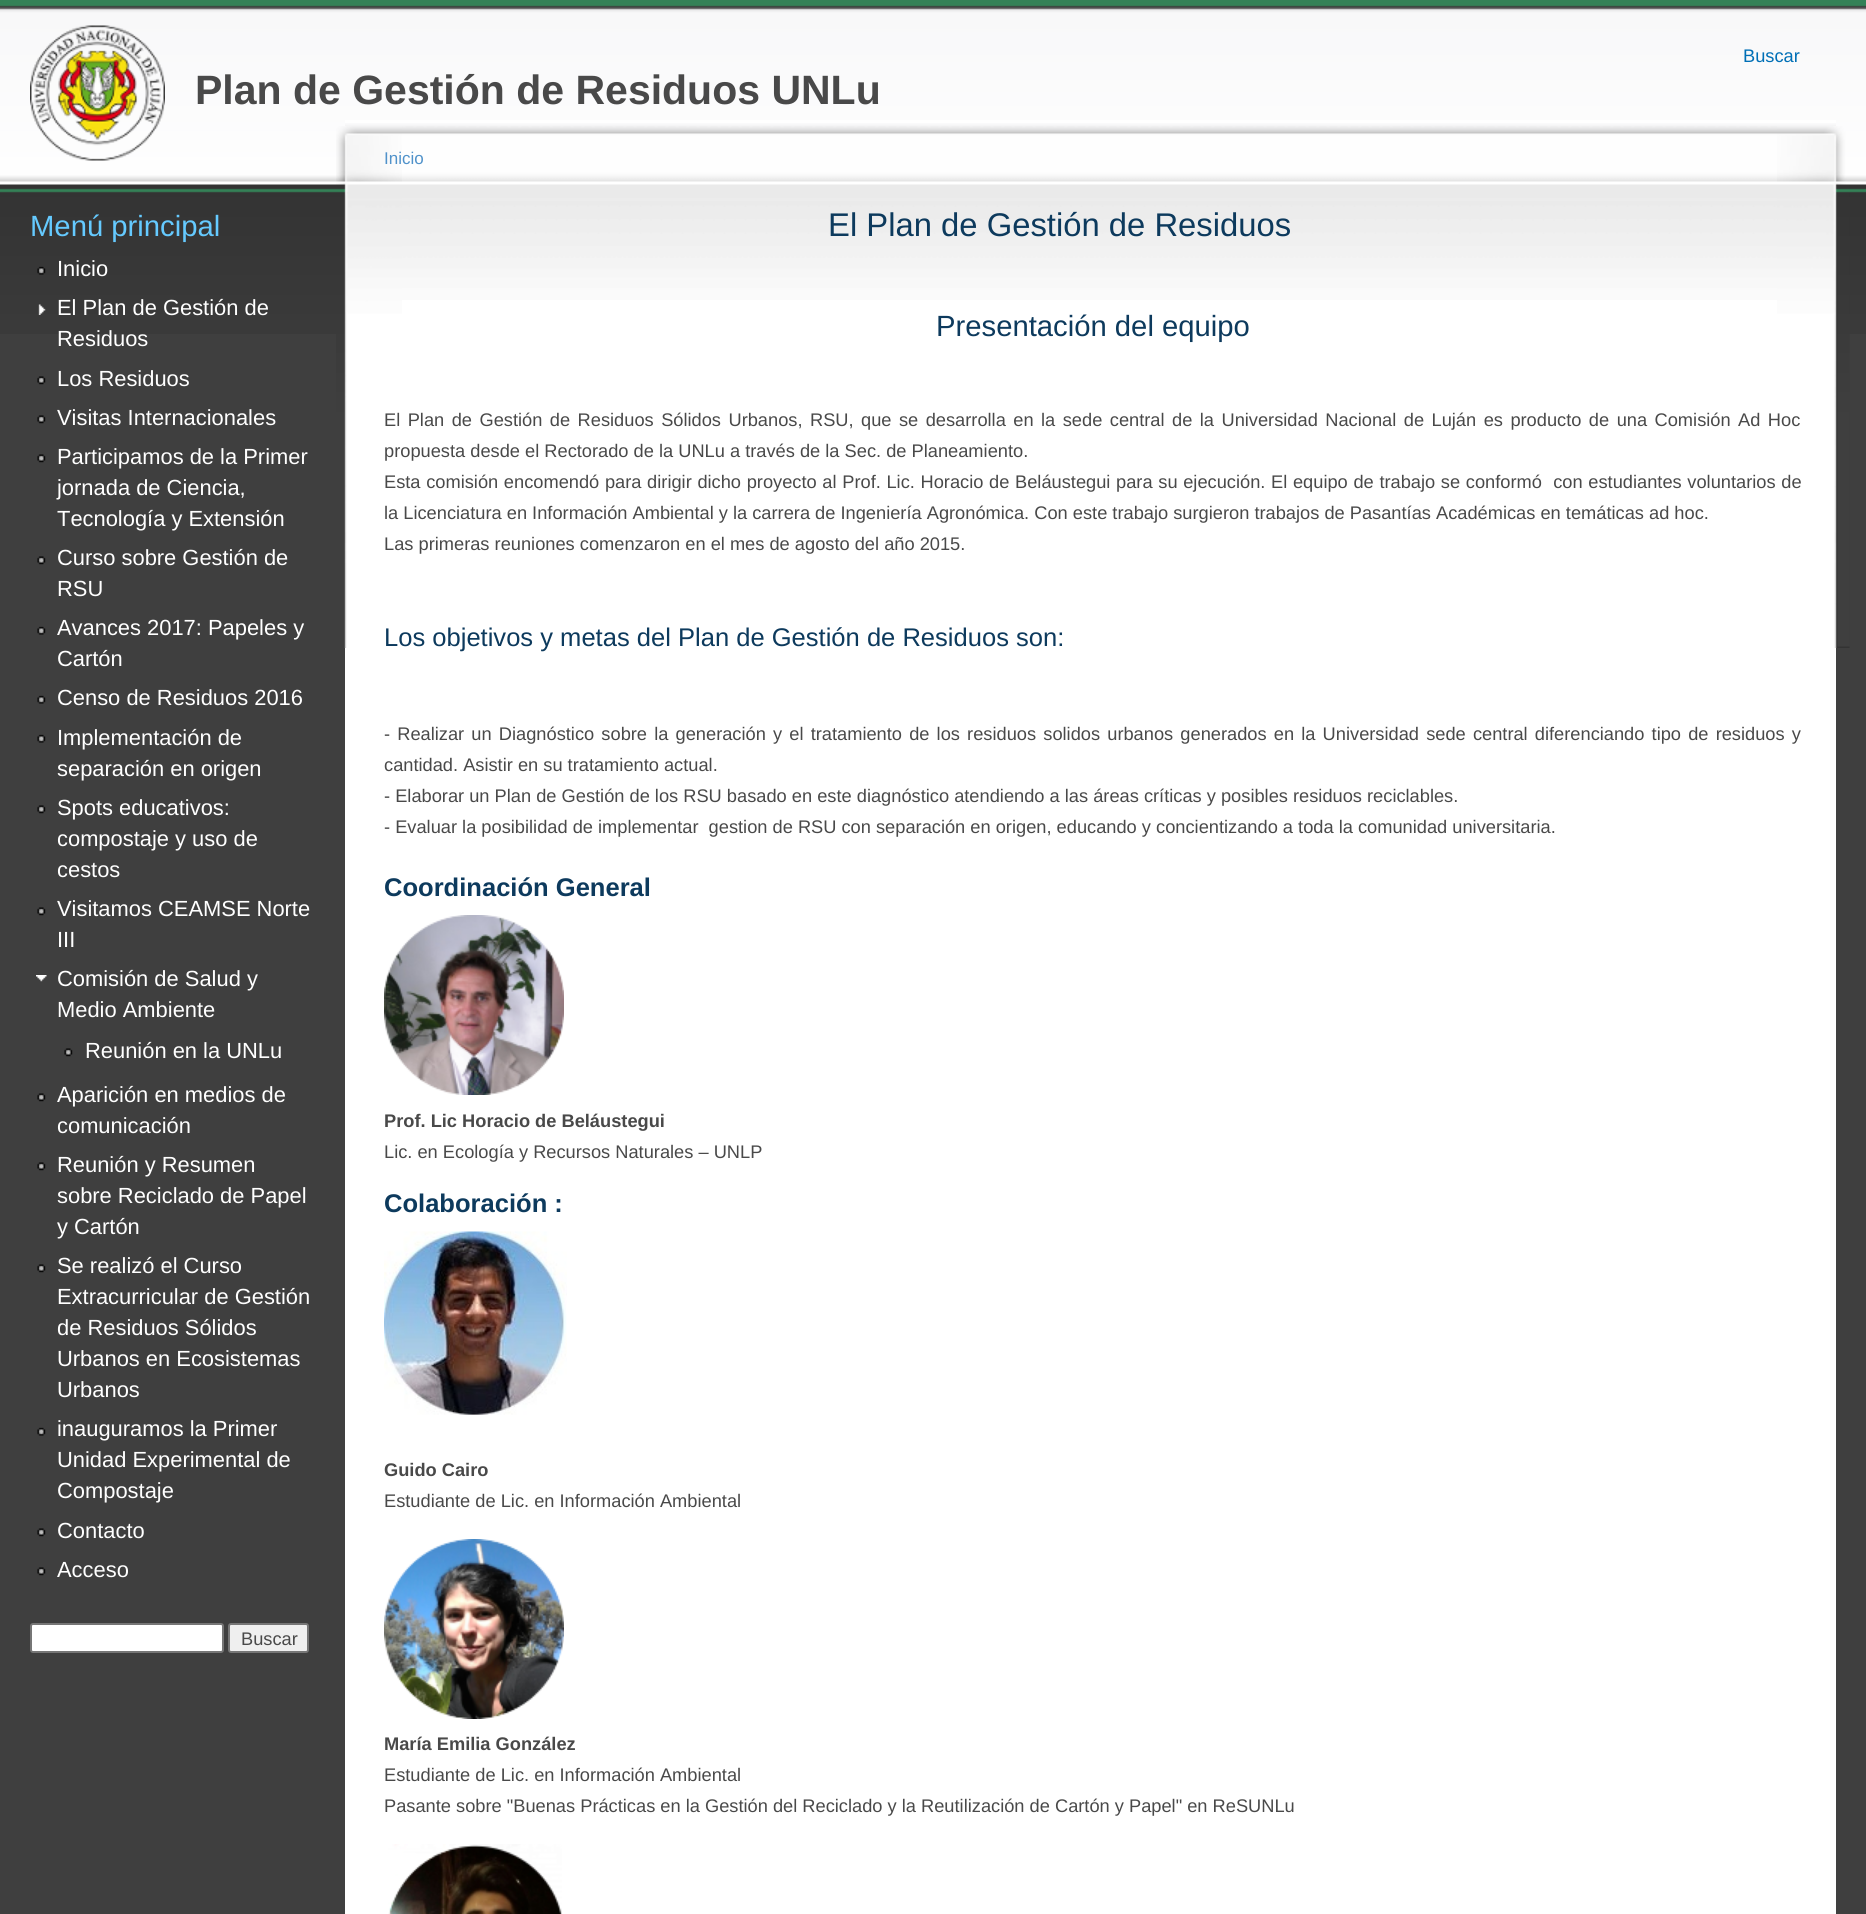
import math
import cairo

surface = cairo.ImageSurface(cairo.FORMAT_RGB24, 1866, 1914)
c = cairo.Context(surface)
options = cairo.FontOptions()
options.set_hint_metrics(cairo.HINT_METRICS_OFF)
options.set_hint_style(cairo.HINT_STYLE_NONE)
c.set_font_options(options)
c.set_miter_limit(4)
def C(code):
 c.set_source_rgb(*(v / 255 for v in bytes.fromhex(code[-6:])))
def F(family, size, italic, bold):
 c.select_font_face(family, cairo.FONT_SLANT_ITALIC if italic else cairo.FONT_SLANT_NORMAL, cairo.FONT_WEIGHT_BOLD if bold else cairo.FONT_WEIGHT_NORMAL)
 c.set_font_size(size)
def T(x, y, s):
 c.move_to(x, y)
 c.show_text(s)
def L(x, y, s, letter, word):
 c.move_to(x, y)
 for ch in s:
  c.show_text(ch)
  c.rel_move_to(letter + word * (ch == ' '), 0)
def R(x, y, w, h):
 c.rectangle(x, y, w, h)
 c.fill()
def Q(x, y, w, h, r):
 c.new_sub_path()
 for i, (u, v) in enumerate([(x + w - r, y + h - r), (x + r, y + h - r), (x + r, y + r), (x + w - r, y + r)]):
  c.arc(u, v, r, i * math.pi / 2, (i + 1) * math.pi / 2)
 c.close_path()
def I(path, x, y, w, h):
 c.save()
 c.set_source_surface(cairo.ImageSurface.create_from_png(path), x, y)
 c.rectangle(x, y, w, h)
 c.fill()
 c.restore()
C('3f3f3f')
c.paint()
I('1.png',0,0,1866,334)
F('Liberation Sans',18.25,0,0)
C('006fb6')
T(1743,62,'Buscar')
I('2.png',30,25,135,136)
F('Liberation Sans',41,0,1)
C('494949')
T(195,104,'Plan de Gestión de Residuos UNLu')
F('Liberation Sans',29.25,0,0)
C('65caff')
T(30,236,'Menú principal')
I('3.png',37,266,9,9)
F('Liberation Sans',21.9,0,0)
C('ffffff')
T(57,276,'Inicio')
I('4.png',38,304,8,11)
T(57,315,'El Plan de Gestión de')
T(57,346,'Residuos')
I('5.png',37,376,9,9)
T(57,386,'Los Residuos')
I('5.png',37,415,9,9)
T(57,425,'Visitas Internacionales')
I('5.png',37,454,9,9)
T(57,464,'Participamos de la Primer')
T(57,495,'jornada de Ciencia,')
T(57,526,'Tecnología y Extensión')
I('5.png',37,556,9,9)
T(57,565,'Curso sobre Gestión de')
T(57,596,'RSU')
I('6.png',37,626,9,9)
T(57,635,'Avances 2017: Papeles y')
T(57,666,'Cartón')
I('6.png',37,695,9,9)
T(57,705,'Censo de Residuos 2016')
I('6.png',37,734,9,9)
T(57,745,'Implementación de')
T(57,776,'separación en origen')
I('5.png',37,805,9,9)
T(57,815,'Spots educativos:')
T(57,846,'compostaje y uso de')
T(57,877,'cestos')
I('5.png',37,907,9,9)
T(57,916,'Visitamos CEAMSE Norte')
T(57,947,'III')
I('7.png',36,975,11,7)
T(57,986,'Comisión de Salud y')
T(57,1017,'Medio Ambiente')
I('5.png',64,1048,9,9)
T(85,1058,'Reunión en la UNLu')
I('5.png',37,1093,9,9)
T(57,1102,'Aparición en medios de')
T(57,1133,'comunicación')
I('5.png',37,1162,9,9)
T(57,1172,'Reunión y Resumen')
T(57,1203,'sobre Reciclado de Papel')
T(57,1234,'y Cartón')
I('5.png',37,1264,9,9)
T(57,1273,'Se realizó el Curso')
T(57,1304,'Extracurricular de Gestión')
T(57,1335,'de Residuos Sólidos')
T(57,1366,'Urbanos en Ecosistemas')
T(57,1397,'Urbanos')
I('6.png',37,1427,9,9)
T(57,1436,'inauguramos la Primer')
T(57,1467,'Unidad Experimental de')
T(57,1498,'Compostaje')
I('5.png',37,1528,9,9)
T(57,1538,'Contacto')
I('5.png',37,1567,9,9)
T(57,1577,'Acceso')
Q(31,1624,192,28,2)
c.fill_preserve()
C('767676')
c.stroke()
C('efefef')
Q(229,1624,79,28,2)
c.fill_preserve()
C('767676')
c.stroke()
F('Liberation Sans',18.25,0,0)
C('494949')
T(241,1645,'Buscar')
C('ffffff')
R(345,120,1491,1794)
I('8.png',345,123,1491,177)
I('9.png',1777,126,73,522)
I('10.png',336,126,66,522)
F('Liberation Sans',17,0,0)
C('5092ca')
T(384,164,'Inicio')
F('Liberation Sans',32.8,0,0)
C('0d3a5d')
T(828,236,'El Plan de Gestión de Residuos')
F('Liberation Sans',29.25,0,0)
T(936,336,'Presentación del equipo')
F('Liberation Sans',18.25,0,0)
C('494949')
L(384,426,'El Plan de Gestión de Residuos Sólidos Urbanos, RSU, que se desarrolla en la sede central de la Universidad Nacional de Luján es producto de una Comisión Ad Hoc',0,2.4)
T(384,457,'propuesta desde el Rectorado de la UNLu a través de la Sec. de Planeamiento.')
L(384,488,'Esta comisión encomendó para dirigir dicho proyecto al Prof. Lic. Horacio de Beláustegui para su ejecución. El equipo de trabajo se conformó  con estudiantes voluntarios de',0,.6)
T(384,519,'la Licenciatura en Información Ambiental y la carrera de Ingeniería Agronómica. Con este trabajo surgieron trabajos de Pasantías Académicas en temáticas ad hoc.')
T(384,550,'Las primeras reuniones comenzaron en el mes de agosto del año 2015.')
F('Liberation Sans',25.55,0,0)
C('0d3a5d')
T(384,646,'Los objetivos y metas del Plan de Gestión de Residuos son:')
F('Liberation Sans',18.25,0,0)
C('494949')
L(384,740,'- Realizar un Diagnóstico sobre la generación y el tratamiento de los residuos solidos urbanos generados en la Universidad sede central diferenciando tipo de residuos y',0,2.1)
T(384,771,'cantidad. Asistir en su tratamiento actual.')
T(384,802,'- Elaborar un Plan de Gestión de los RSU basado en este diagnóstico atendiendo a las áreas críticas y posibles residuos reciclables.')
T(384,833,'- Evaluar la posibilidad de implementar  gestion de RSU con separación en origen, educando y concientizando a toda la comunidad universitaria.')
F('Liberation Sans',25.55,0,1)
C('0d3a5d')
T(384,896,'Coordinación General')
I('11.png',384,915,180,180)
F('Liberation Sans',18.25,0,1)
C('494949')
T(384,1127,'Prof. Lic Horacio de Beláustegui')
F('Liberation Sans',18.25,0,0)
T(384,1158,'Lic. en Ecología y Recursos Naturales – UNLP')
F('Liberation Sans',25.55,0,1)
C('0d3a5d')
T(384,1212,'Colaboración :')
I('12.png',384,1231,183,184)
F('Liberation Sans',18.25,0,1)
C('494949')
T(384,1476,'Guido Cairo')
F('Liberation Sans',18.25,0,0)
T(384,1507,'Estudiante de Lic. en Información Ambiental')
I('13.png',384,1539,180,180)
F('Liberation Sans',18.25,0,1)
T(384,1750,'María Emilia González')
F('Liberation Sans',18.25,0,0)
T(384,1781,'Estudiante de Lic. en Información Ambiental')
T(384,1812,'Pasante sobre "Buenas Prácticas en la Gestión del Reciclado y la Reutilización de Cartón y Papel" en ReSUNLu')
I('14.png',388,1844,174,70)
surface.write_to_png('o.png')
